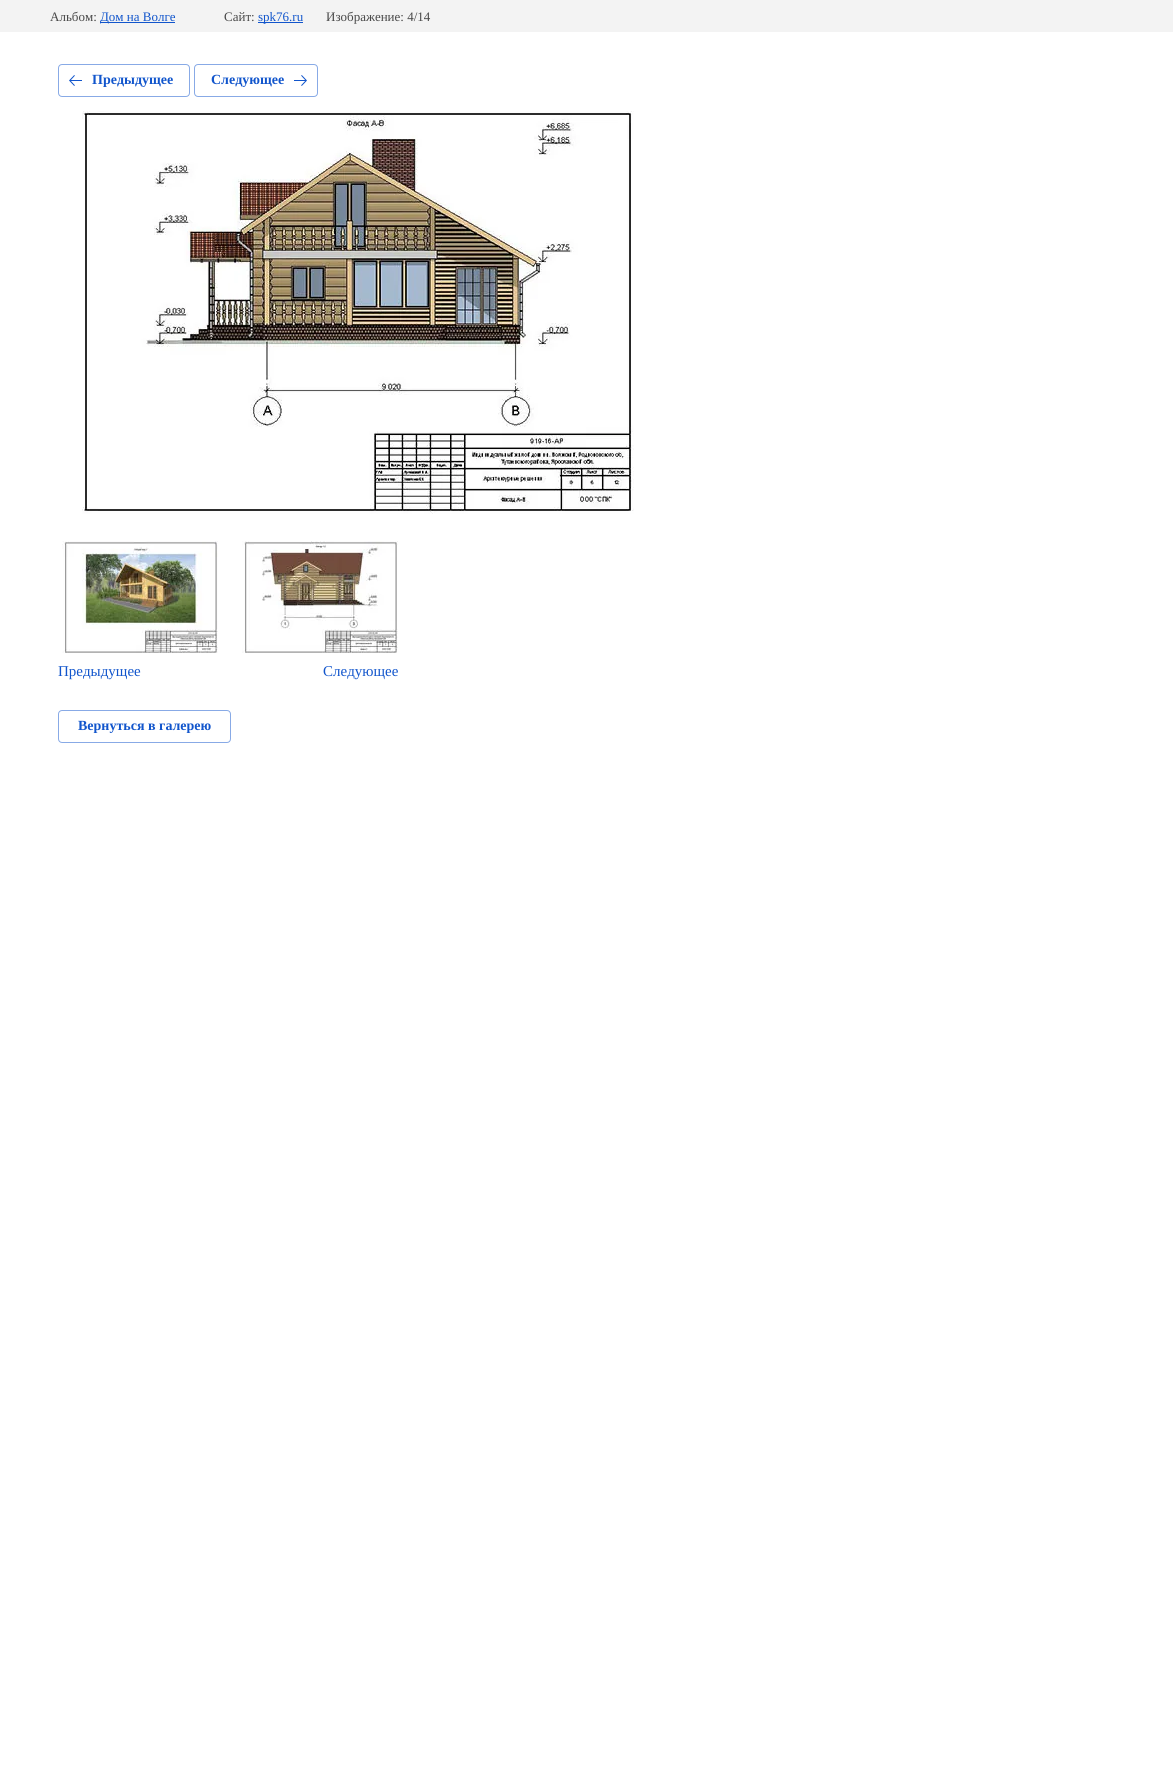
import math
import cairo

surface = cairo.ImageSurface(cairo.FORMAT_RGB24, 1173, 1773)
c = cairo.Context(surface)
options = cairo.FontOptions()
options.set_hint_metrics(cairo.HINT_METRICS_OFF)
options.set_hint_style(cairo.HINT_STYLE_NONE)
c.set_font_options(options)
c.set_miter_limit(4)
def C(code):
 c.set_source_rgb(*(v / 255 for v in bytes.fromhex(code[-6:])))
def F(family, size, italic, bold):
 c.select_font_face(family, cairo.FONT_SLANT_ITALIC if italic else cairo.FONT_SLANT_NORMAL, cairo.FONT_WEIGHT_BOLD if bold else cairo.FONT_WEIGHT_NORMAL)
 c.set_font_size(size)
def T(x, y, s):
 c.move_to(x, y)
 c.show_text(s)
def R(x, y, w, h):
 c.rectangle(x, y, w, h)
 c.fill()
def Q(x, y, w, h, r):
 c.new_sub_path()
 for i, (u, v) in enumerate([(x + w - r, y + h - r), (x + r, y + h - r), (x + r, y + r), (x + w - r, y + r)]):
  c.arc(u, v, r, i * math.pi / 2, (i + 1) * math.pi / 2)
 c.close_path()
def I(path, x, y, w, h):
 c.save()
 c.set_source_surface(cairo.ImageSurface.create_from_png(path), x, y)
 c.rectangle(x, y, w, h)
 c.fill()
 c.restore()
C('ffffff')
c.paint()
C('f3f3f3')
R(0,0,1173,32)
F('Liberation Serif',13,0,0)
C('484848')
T(50,21,'Альбом:')
C('1155cc')
R(100,22,75,1)
T(100,21,'Дом на Волге')
C('484848')
T(224,21,'Сайт:')
C('1155cc')
R(258,22,45,1)
T(258,21,'spk76.ru')
C('484848')
T(326,21,'Изображение: 4/14')
Q(58.5,64.5,131,32,3.5)
C('88aae6')
c.set_line_width(1)
c.stroke()
I('1.png',69,75,13,11)
F('Liberation Serif',14,0,1)
C('1155cc')
T(92,84,'Предыдущее')
Q(194.5,64.5,123,32,3.5)
C('88aae6')
c.stroke()
C('1155cc')
T(211,84,'Следующее')
I('2.png',294,75,13,11)
I('3.png',82,111,552,403)
I('4.png',62,541,156,112)
F('Liberation Serif',15,0,0)
T(58,676,'Предыдущее')
I('5.png',242,541,156,112)
T(323,676,'Следующее')
Q(58.5,710.5,172,32,3.5)
C('88aae6')
c.stroke()
F('Liberation Serif',14,0,1)
C('1155cc')
T(78,730,'Вернуться в галерею')
surface.write_to_png('o.png')
